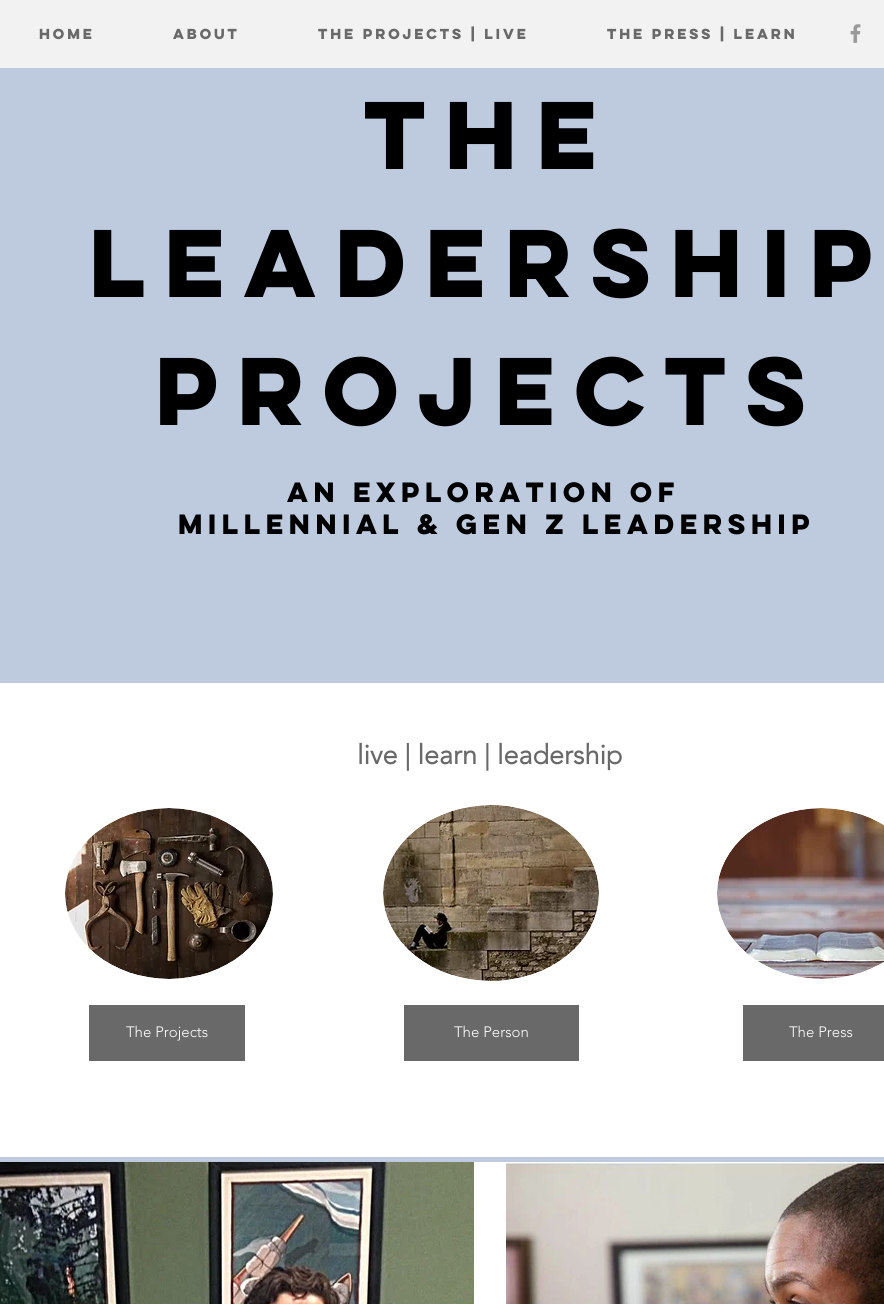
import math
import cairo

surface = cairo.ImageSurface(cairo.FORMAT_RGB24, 884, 1304)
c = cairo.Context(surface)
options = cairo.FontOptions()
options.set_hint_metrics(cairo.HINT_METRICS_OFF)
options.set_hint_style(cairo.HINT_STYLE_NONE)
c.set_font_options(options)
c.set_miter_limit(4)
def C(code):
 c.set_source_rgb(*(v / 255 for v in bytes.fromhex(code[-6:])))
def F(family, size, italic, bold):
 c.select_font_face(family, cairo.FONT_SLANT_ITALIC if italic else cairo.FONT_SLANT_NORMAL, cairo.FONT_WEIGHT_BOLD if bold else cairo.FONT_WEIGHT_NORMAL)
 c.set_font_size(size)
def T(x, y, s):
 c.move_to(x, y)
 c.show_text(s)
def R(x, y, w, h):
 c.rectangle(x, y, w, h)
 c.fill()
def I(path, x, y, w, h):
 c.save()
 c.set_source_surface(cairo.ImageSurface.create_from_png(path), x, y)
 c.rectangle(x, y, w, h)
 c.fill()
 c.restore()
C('becbdf')
c.paint()
C('f2f2f2')
R(0,0,884,68)
F('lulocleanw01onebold',13,0,1)
C('696969')
T(39,39,'Home')
T(173,39,'About')
T(318,39,'The Projects | Live')
T(607,39,'The Press | Learn')
I('1.png',850,24,11,19)
F('lulocleanw01onebold',86,0,1)
C('000000')
T(364,169,'The')
T(89,297,'Leadership')
T(155,425,'Projects')
F('lulocleanw01onebold',25,0,1)
T(287,502,'an exploration of')
T(178,534,'millennial & Gen Z leadership')
C('ffffff')
R(0,683,884,474)
F('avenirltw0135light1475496',27,0,1)
C('696969')
T(357,764,'live | learn | leadership')
I('2.png',65,808,208,171)
I('3.png',383,805,216,176)
I('4.png',717,808,167,171)
R(89,1005,156,56)
F('avenirltw0135light1475496 Light',15,0,0)
C('ffffff')
T(126,1037,'The Projects')
C('696969')
R(404,1005,175,56)
C('ffffff')
T(454,1037,'The Person')
C('696969')
R(743,1005,141,56)
C('ffffff')
T(789,1037,'The Press')
R(474,1162,32,142)
I('5.png',0,1162,474,142)
I('6.png',506,1162,378,142)
surface.write_to_png('o.png')
